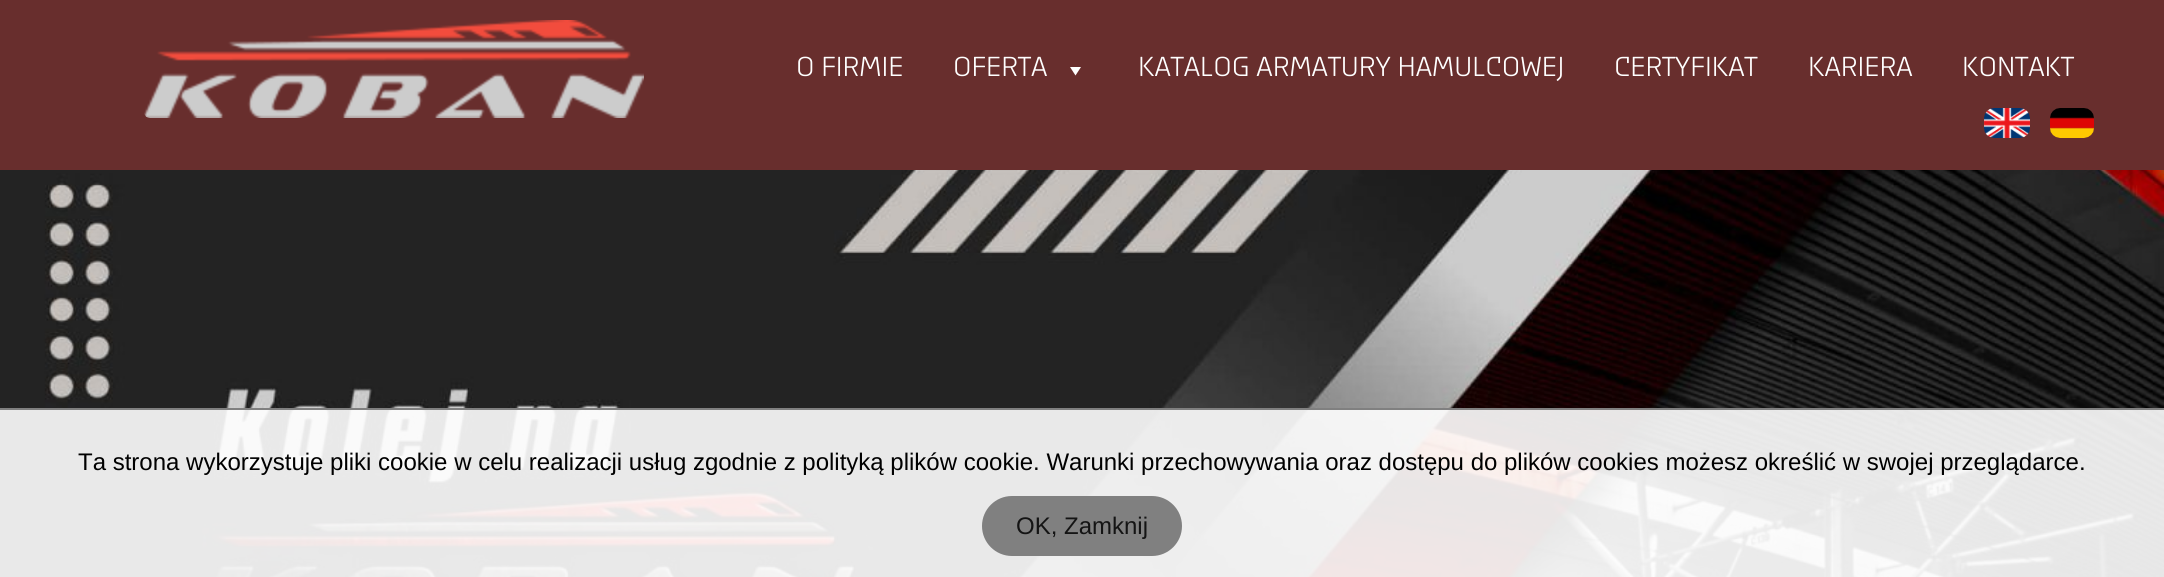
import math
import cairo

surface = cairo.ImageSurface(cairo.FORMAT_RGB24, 2164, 577)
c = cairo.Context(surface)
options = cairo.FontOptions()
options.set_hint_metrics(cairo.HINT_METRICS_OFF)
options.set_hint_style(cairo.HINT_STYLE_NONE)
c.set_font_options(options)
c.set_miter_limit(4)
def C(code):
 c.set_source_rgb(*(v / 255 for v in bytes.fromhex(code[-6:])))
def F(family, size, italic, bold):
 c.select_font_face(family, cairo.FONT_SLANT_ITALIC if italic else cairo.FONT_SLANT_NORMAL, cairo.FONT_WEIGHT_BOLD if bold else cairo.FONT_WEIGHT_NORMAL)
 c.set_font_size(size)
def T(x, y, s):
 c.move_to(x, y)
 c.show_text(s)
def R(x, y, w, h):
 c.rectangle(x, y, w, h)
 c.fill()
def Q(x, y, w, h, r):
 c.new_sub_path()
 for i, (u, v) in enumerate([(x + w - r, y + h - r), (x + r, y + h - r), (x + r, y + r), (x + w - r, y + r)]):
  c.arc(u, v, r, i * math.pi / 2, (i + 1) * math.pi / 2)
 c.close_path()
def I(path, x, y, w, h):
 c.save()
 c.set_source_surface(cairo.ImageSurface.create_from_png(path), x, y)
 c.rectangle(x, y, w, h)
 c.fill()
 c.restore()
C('ffffff')
c.paint()
C('682e2d')
R(0,0,2164,170)
I('1.png',144,20,500,98)
F('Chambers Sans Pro',28,0,0)
C('ffffff')
T(796,76,'O FIRMIE')
T(953,76,'OFERTA')
c.new_path()
c.move_to(1081,67)
c.line_to(1075.5,75.5)
c.line_to(1070,67)
c.close_path()
c.fill()
T(1138,76,'KATALOG ARMATURY HAMULCOWEJ')
T(1614,76,'CERTYFIKAT')
T(1808,76,'KARIERA')
T(1962,76,'KONTAKT')
I('2.png',1984,108,46,30)
I('3.png',2050,108,44,30)
I('4.png',0,170,2164,407)
c.set_source_rgba(1,1,1,0.9)
R(0,410,2164,167)
C('808080')
R(0,408,2164,2)
F('Liberation Sans',24,0,0)
C('000000')
T(78,470,'Ta strona wykorzystuje pliki cookie w celu realizacji usług zgodnie z polityką plików cookie. Warunki przechowywania oraz dostępu do plików cookies możesz określić w swojej przeglądarce.')
C('808080')
Q(982,496,200,60,30)
c.fill()
C('141414')
T(1016,534,'OK, Zamknij')
surface.write_to_png('o.png')
